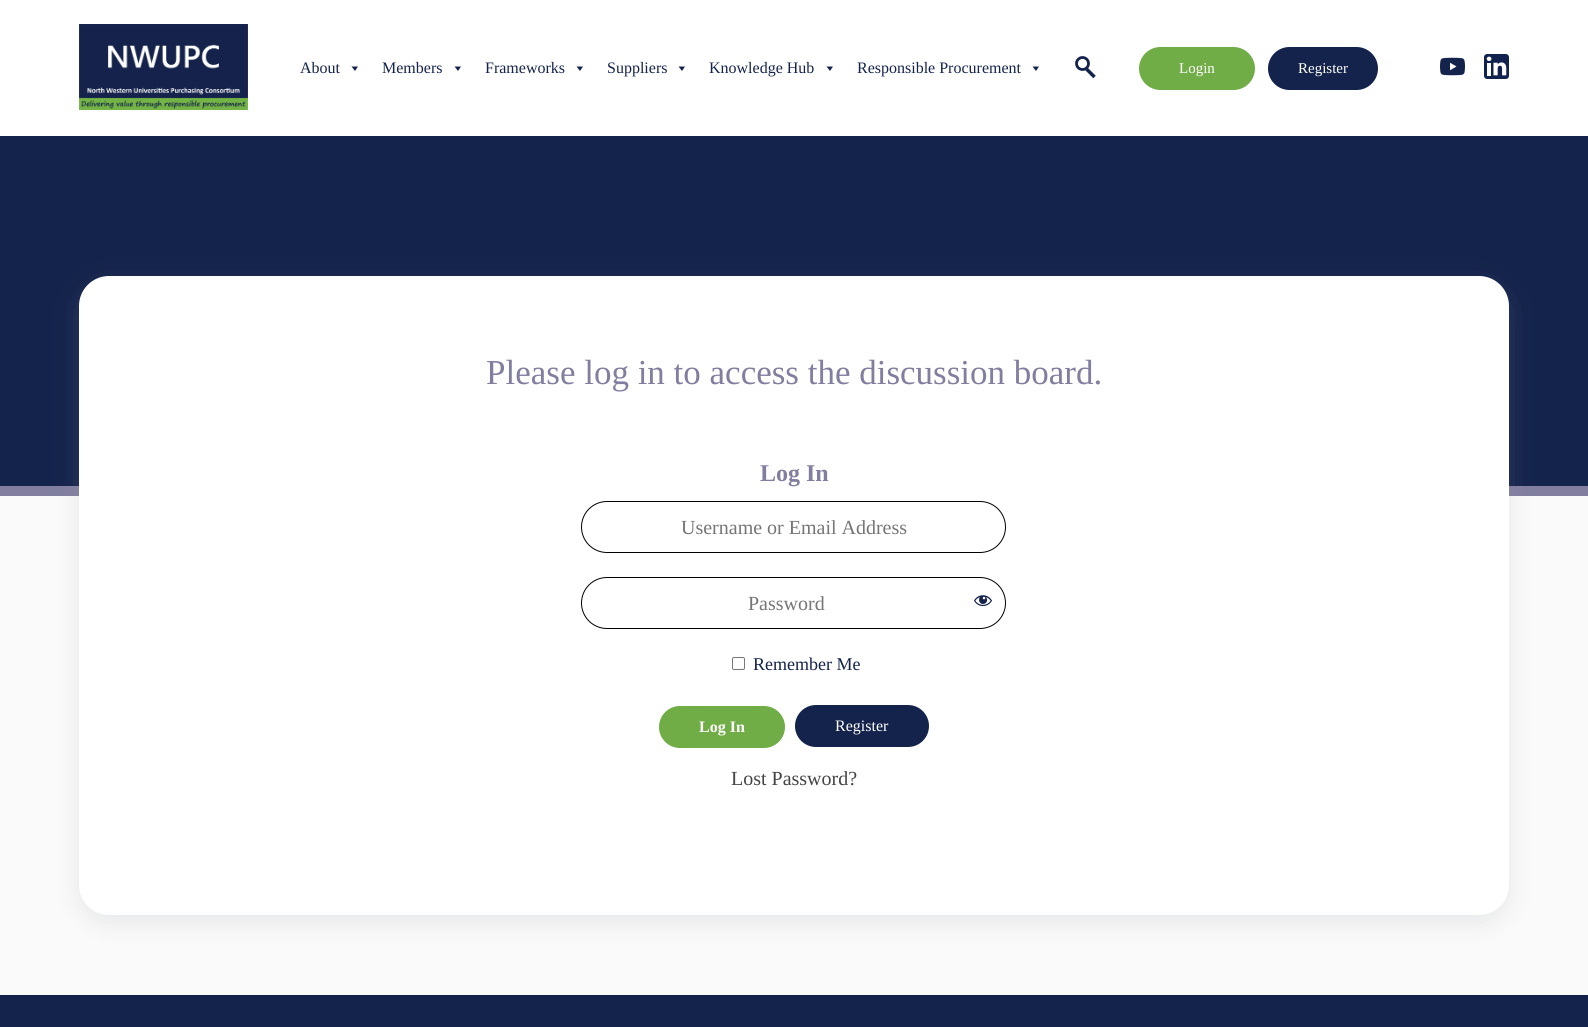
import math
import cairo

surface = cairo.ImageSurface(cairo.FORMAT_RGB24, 1588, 1027)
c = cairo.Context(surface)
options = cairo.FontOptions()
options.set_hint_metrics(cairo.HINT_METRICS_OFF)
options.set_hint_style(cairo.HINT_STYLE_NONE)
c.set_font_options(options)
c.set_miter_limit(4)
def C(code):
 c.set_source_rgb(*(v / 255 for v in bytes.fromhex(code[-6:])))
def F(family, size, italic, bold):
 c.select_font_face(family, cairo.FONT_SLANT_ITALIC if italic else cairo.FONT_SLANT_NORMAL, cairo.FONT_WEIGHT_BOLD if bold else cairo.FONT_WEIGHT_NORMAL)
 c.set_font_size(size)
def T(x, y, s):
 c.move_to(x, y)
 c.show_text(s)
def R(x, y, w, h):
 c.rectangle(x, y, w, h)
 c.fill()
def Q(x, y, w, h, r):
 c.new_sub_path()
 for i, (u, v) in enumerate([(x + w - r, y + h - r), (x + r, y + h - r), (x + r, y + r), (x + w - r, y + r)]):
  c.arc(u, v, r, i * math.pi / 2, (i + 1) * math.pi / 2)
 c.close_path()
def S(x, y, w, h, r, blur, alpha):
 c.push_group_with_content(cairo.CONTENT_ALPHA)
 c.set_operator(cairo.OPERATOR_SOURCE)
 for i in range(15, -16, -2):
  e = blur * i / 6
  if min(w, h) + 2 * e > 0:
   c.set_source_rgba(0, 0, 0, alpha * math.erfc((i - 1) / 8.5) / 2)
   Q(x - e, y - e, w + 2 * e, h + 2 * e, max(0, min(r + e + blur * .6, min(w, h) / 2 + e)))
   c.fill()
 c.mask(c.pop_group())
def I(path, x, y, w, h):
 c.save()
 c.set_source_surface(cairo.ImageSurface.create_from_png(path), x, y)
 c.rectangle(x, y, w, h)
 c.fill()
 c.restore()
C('ffffff')
c.paint()
I('1.png',79,24,169,86)
F('Liberation Serif',16,0,0)
C('14234b')
T(300,73,'About')
c.new_path()
c.move_to(358,66.5)
c.line_to(355,71)
c.line_to(351.5,66.5)
c.close_path()
c.fill()
T(382,73,'Members')
c.new_path()
c.move_to(461,66.5)
c.line_to(458,71)
c.line_to(454.5,66.5)
c.close_path()
c.fill()
T(485,73,'Frameworks')
c.new_path()
c.move_to(583,66.5)
c.line_to(580,71)
c.line_to(576.5,66.5)
c.close_path()
c.fill()
T(607,73,'Suppliers')
c.new_path()
c.move_to(685,66.5)
c.line_to(682,71)
c.line_to(678.5,66.5)
c.close_path()
c.fill()
T(709,73,'Knowledge Hub')
c.new_path()
c.move_to(833,66.5)
c.line_to(830,71)
c.line_to(826.5,66.5)
c.close_path()
c.fill()
T(857,73,'Responsible Procurement')
c.new_path()
c.move_to(1039,66.5)
c.line_to(1036,71)
c.line_to(1032.5,66.5)
c.close_path()
c.fill()
c.arc(1082.5,63.5,6,0,2 * math.pi)
c.set_line_width(2.8)
c.stroke()
c.new_path()
c.move_to(1086.5,69)
c.line_to(1094.5,77)
c.set_line_width(3.5)
c.stroke()
C('70ad46')
Q(1139,47,116,43,21.5)
c.fill()
F('Liberation Serif',15,0,0)
C('ffffff')
T(1179,73,'Login')
C('14234b')
Q(1268,47,110,43,21.5)
c.fill()
C('ffffff')
T(1298,73,'Register')
I('2.png',1440,57,25,19)
I('3.png',1484,54,25,25)
C('fafafa')
R(0,496,1588,499)
C('14234b')
R(0,136,1588,350)
C('817e9f')
R(0,486,1588,10)
C('959da5')
S(79,284,1430,639,30,12,.2)
C('ffffff')
Q(79,276,1430,639,30)
c.fill()
F('Liberation Serif',35,0,0)
C('817e9f')
T(486,384,'Please log in to access the discussion board.')
F('Liberation Serif',24,0,1)
T(760,481,'Log In')
Q(581.5,501.5,424,51,25.5)
C('000000')
c.set_line_width(1)
c.stroke()
F('Liberation Serif',20,0,0)
C('757575')
T(681,534,'Username or Email Address')
Q(581.5,577.5,424,51,25.5)
C('000000')
c.stroke()
C('757575')
T(748,610,'Password')
I('4.png',974,595,18,12)
Q(732.5,657.5,12,12,1.5)
C('767676')
c.stroke()
F('Liberation Serif',18,0,0)
C('14234b')
T(753,670,'Remember Me')
C('70ad46')
Q(659,706,126,42,21)
c.fill()
F('Liberation Serif',16,0,1)
C('ffffff')
T(699,732,'Log In')
C('14234b')
Q(795,705,134,42,21)
c.fill()
F('Liberation Serif',16,0,0)
C('ffffff')
T(835,731,'Register')
F('Liberation Serif',20,0,0)
C('444444')
T(731,785,'Lost Password?')
C('14234b')
R(0,995,1588,32)
surface.write_to_png('o.png')
